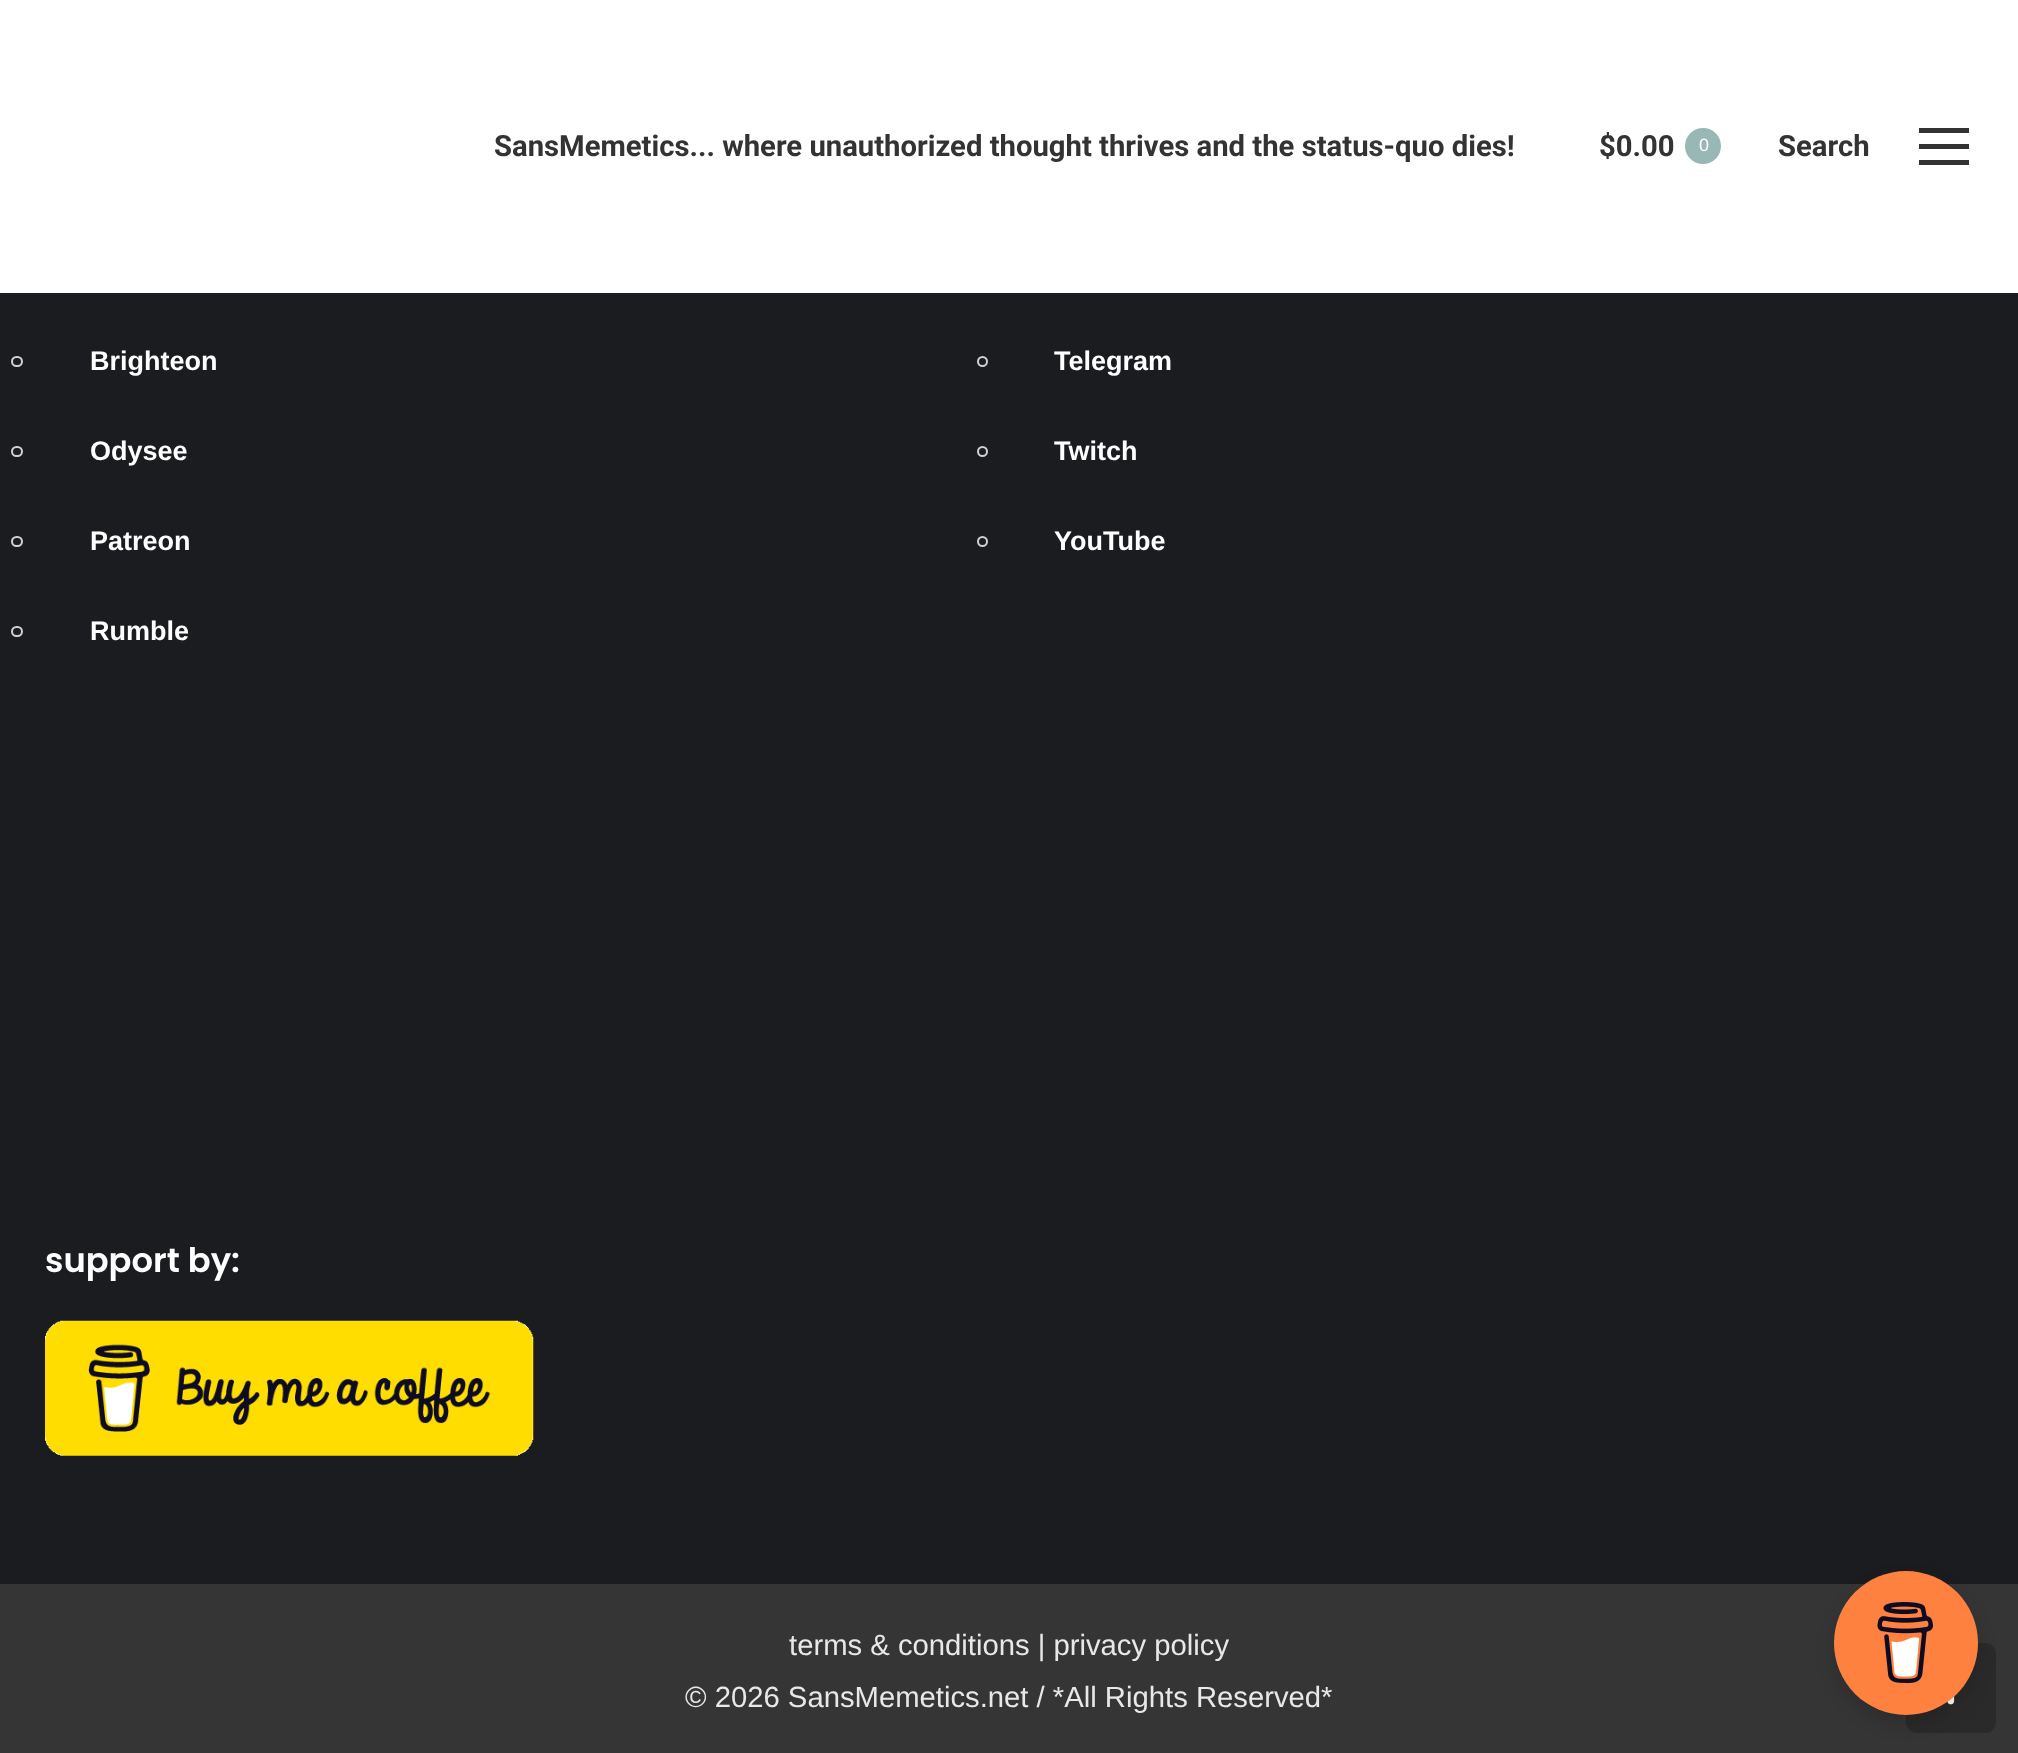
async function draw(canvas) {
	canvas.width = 2018;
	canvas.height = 1753;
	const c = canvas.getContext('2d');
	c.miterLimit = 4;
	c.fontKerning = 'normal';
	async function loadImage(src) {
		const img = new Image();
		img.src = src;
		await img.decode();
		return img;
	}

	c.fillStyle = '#1a1c20';
	c.fillRect(0, 0, 2018, 1753);
	c.fillStyle = '#fff';
	c.fillRect(0, 0, 2018, 293);
	c.font = 'bold 29.25px Roboto';
	c.fillStyle = '#333';
	c.fillText('SansMemetics... where unauthorized thought thrives and the status-quo dies!', 494, 156);
	c.fillText('$0.00', 1599, 156);
	c.fillStyle = '#98b8b6';
	c.beginPath();
	c.arc(1703, 146, 18, 0, 2 * Math.PI);
	c.fill();
	c.font = '18px Liberation Sans';
	c.fillStyle = '#fff';
	c.fillText('0', 1699, 151);
	c.font = 'bold 29.25px Roboto';
	c.fillStyle = '#333';
	c.fillText('Search', 1778, 156);
	for (const [x, y, w, h, color] of [
		[1919, 128, 50, 5, '#333'],
		[1919, 144, 50, 5, '#333'],
		[1919, 160, 50, 5, '#333'],
	]) {
		c.fillStyle = color;
		c.fillRect(x, y, w, h);
	}
	c.beginPath();
	c.roundRect(12, 357, 10, 9, 4.5);
	c.strokeStyle = '#d1d1d1';
	c.lineWidth = 2;
	c.stroke();
	c.font = 'bold 27px Liberation Sans';
	c.fillStyle = '#fff';
	c.fillText('Brighteon', 90, 370);
	c.beginPath();
	c.roundRect(12, 447, 10, 9, 4.5);
	c.stroke();
	c.fillText('Odysee', 90, 460);
	c.beginPath();
	c.roundRect(12, 537, 10, 9, 4.5);
	c.stroke();
	c.fillText('Patreon', 90, 550);
	c.beginPath();
	c.roundRect(12, 627, 10, 9, 4.5);
	c.stroke();
	c.fillText('Rumble', 90, 640);
	c.beginPath();
	c.arc(982.5, 361.5, 4.5, 0, 2 * Math.PI);
	c.stroke();
	c.fillText('Telegram', 1054, 370);
	c.beginPath();
	c.arc(982.5, 451.5, 4.5, 0, 2 * Math.PI);
	c.stroke();
	c.fillText('Twitch', 1054, 460);
	c.beginPath();
	c.arc(982.5, 541.5, 4.5, 0, 2 * Math.PI);
	c.stroke();
	c.fillText('YouTube', 1054, 550);
	c.font = '600 33.75px Poppins';
	c.fillText('support by:', 45, 1272);
	c.drawImage(await loadImage('img1.png'), 45, 1320, 489, 136);
	c.fillStyle = '#353535';
	c.fillRect(0, 1584, 2018, 169);
	c.font = '29.25px Liberation Sans';
	c.fillStyle = '#e8e8e8';
	c.fillText('terms & conditions | privacy policy', 789, 1655);
	c.fillText('© 2026 SansMemetics.net / *All Rights Reserved*', 685, 1707);
	c.fillStyle = '#2a2a2a';
	c.beginPath();
	c.roundRect(1906, 1643, 90, 90, 11);
	c.fill();
	c.drawImage(await loadImage('img2.png'), 1947, 1684, 18, 21);
	c.fillStyle = '#00000026';
	c.filter = 'blur(9px)';
	c.beginPath();
	c.roundRect(1834, 1580, 144, 144, 72);
	c.fill();
	c.filter = 'none';
	c.fillStyle = '#ff813f';
	c.beginPath();
	c.arc(1906, 1643, 72, 0, 2 * Math.PI);
	c.fill();
	c.drawImage(await loadImage('img3.png'), 1877, 1602, 56, 81);
}

draw(document.querySelector('canvas'));
